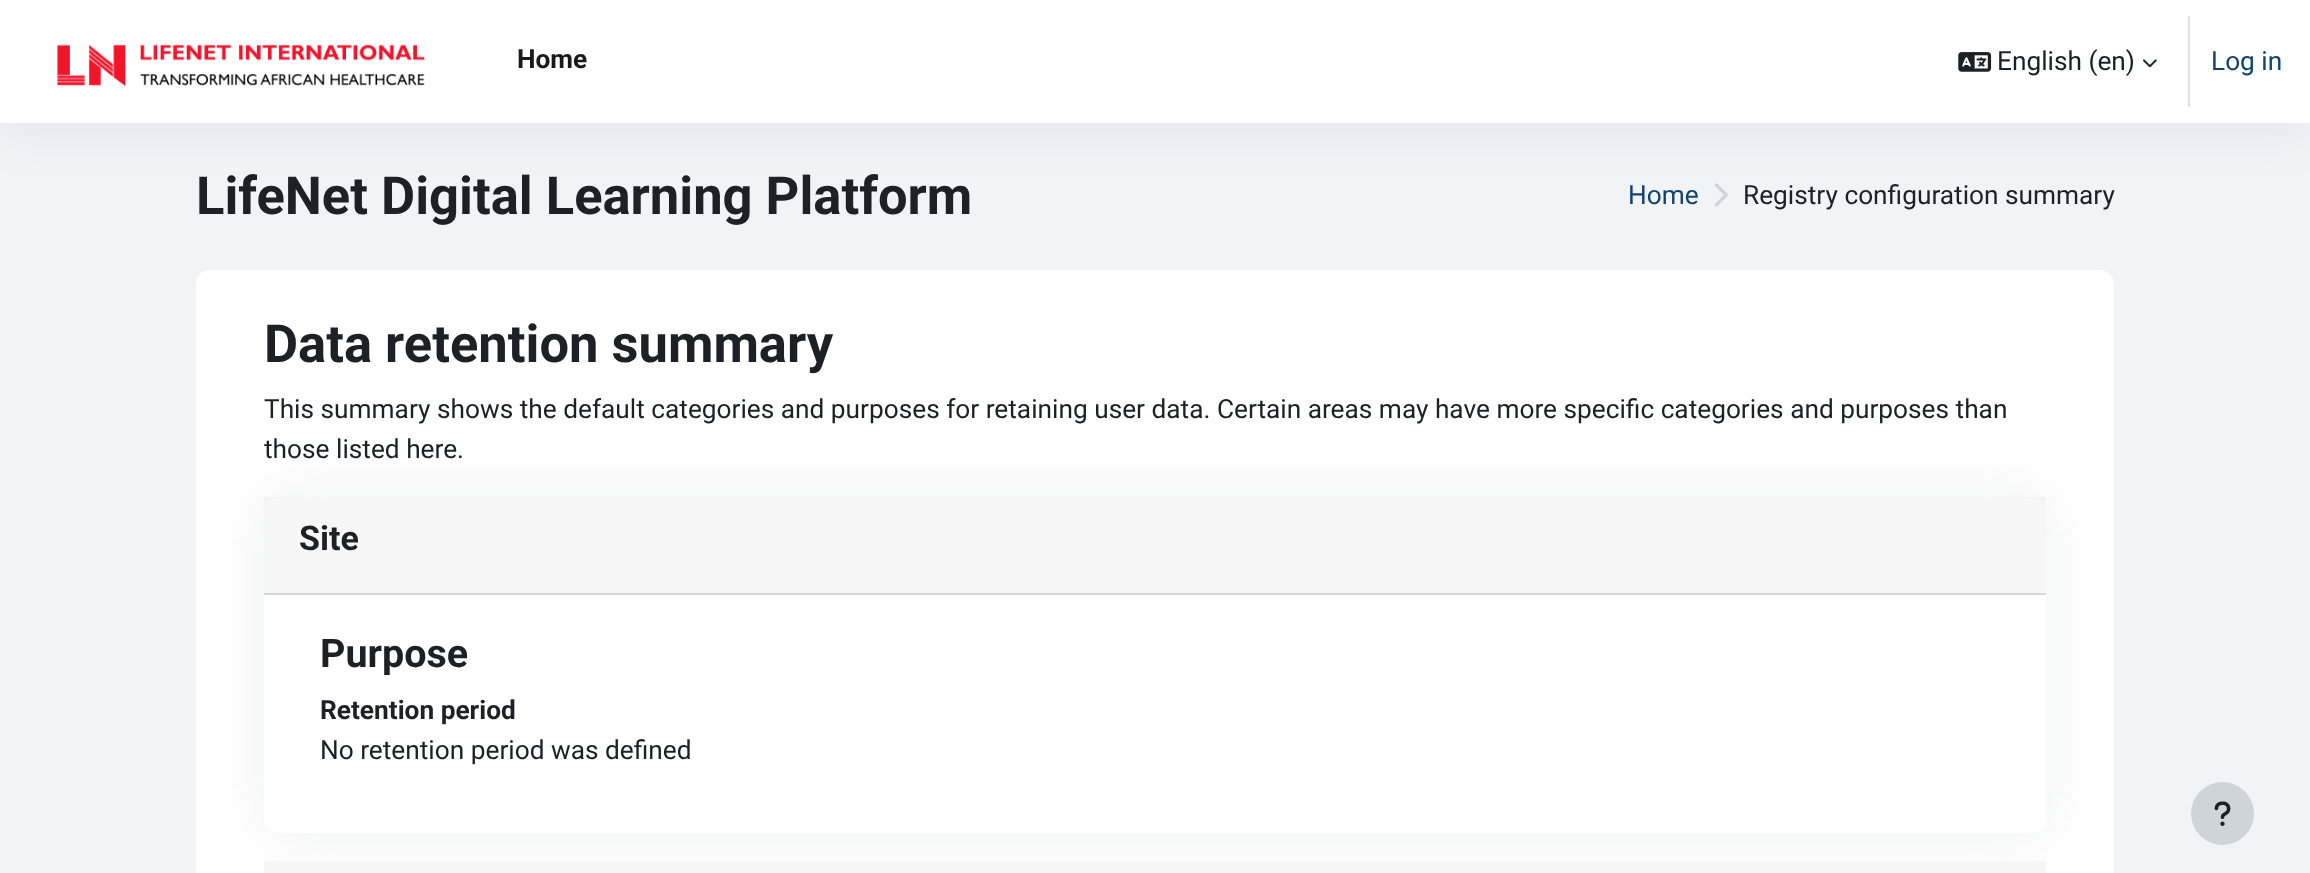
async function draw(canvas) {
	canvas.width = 2310;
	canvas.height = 873;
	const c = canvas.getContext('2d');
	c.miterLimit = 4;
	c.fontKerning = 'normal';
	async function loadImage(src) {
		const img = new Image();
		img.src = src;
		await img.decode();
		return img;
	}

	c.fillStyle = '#f2f3f7';
	c.fillRect(0, 0, 2310, 873);
	c.drawImage(await loadImage('img4.png'), 1714, 183, 14, 24);
	c.fillStyle = '#8c98a421';
	c.filter = 'blur(21px)';
	c.beginPath();
	c.rect(0, 11, 2310, 122);
	c.fill();
	c.filter = 'none';
	c.fillStyle = '#fff';
	c.fillRect(0, 0, 2310, 123);
	c.drawImage(await loadImage('img1.png'), 57, 44, 368, 43);
	c.font = 'bold 26.25px Roboto';
	c.fillStyle = '#1a1a1a';
	c.fillText('Home', 517, 68);
	c.drawImage(await loadImage('img2.png'), 1958, 52, 34, 20);
	c.font = '26.25px Roboto';
	c.fillStyle = '#1d2125';
	c.fillText('English (en)', 1997, 70);
	c.drawImage(await loadImage('img3.png'), 2143, 59, 14, 9);
	c.fillStyle = '#dee2e6';
	c.fillRect(2188, 16, 2, 91);
	c.fillStyle = '#134270';
	c.fillText('Log in', 2211, 70);
	c.font = 'bold 52.5px Roboto';
	c.fillStyle = '#1d2125';
	c.fillText('LifeNet Digital Learning Platform', 196, 214);
	c.font = '26.25px Roboto';
	c.fillStyle = '#134270';
	c.fillText('Home', 1628, 204);
	c.fillStyle = '#1d2125';
	c.fillText('Registry configuration summary', 1743, 204);
	c.fillStyle = '#fff';
	c.beginPath();
	c.roundRect(196, 270, 1918, 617, 14);
	c.fill();
	c.font = 'bold 52.5px Roboto';
	c.fillStyle = '#1d2125';
	c.fillText('Data retention summary', 264, 362);
	c.font = '26.25px Roboto';
	c.fillText('This summary shows the default categories and purposes for retaining user data. Certain areas may have more specific categories and purposes than', 264, 418);
	c.fillText('those listed here.', 264, 458);
	c.fillStyle = '#9aa1ab26';
	c.filter = 'blur(30.5px)';
	c.beginPath();
	c.roundRect(264, 497, 1782, 336, 14);
	c.fill();
	c.filter = 'none';
	c.fillStyle = '#fff';
	c.beginPath();
	c.roundRect(264, 497, 1782, 336, 14);
	c.fill();
	c.fillStyle = '#00000008';
	c.fillRect(264, 497, 1782, 96);
	c.fillStyle = '#d8d8d8';
	c.fillRect(264, 593, 1782, 2);
	c.font = 'bold 34px Roboto';
	c.fillStyle = '#1d2125';
	c.fillText('Site', 299, 550);
	c.font = 'bold 39.5px Roboto';
	c.fillText('Purpose', 320, 667);
	c.font = 'bold 26.25px Roboto';
	c.fillText('Retention period', 320, 719);
	c.font = '26.25px Roboto';
	c.fillText('No retention period was defined', 320, 759);
	c.fillStyle = '#fff';
	c.beginPath();
	c.roundRect(264, 861, 1782, 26, 14);
	c.fill();
	c.fillStyle = '#00000008';
	c.fillRect(264, 861, 1782, 12);
	c.fillStyle = '#ced4da';
	c.beginPath();
	c.arc(2222.5, 813.5, 31.5, 0, 2 * Math.PI);
	c.fill();
	c.drawImage(await loadImage('img5.png'), 2214, 801, 17, 25);
}

draw(document.querySelector('canvas'));
